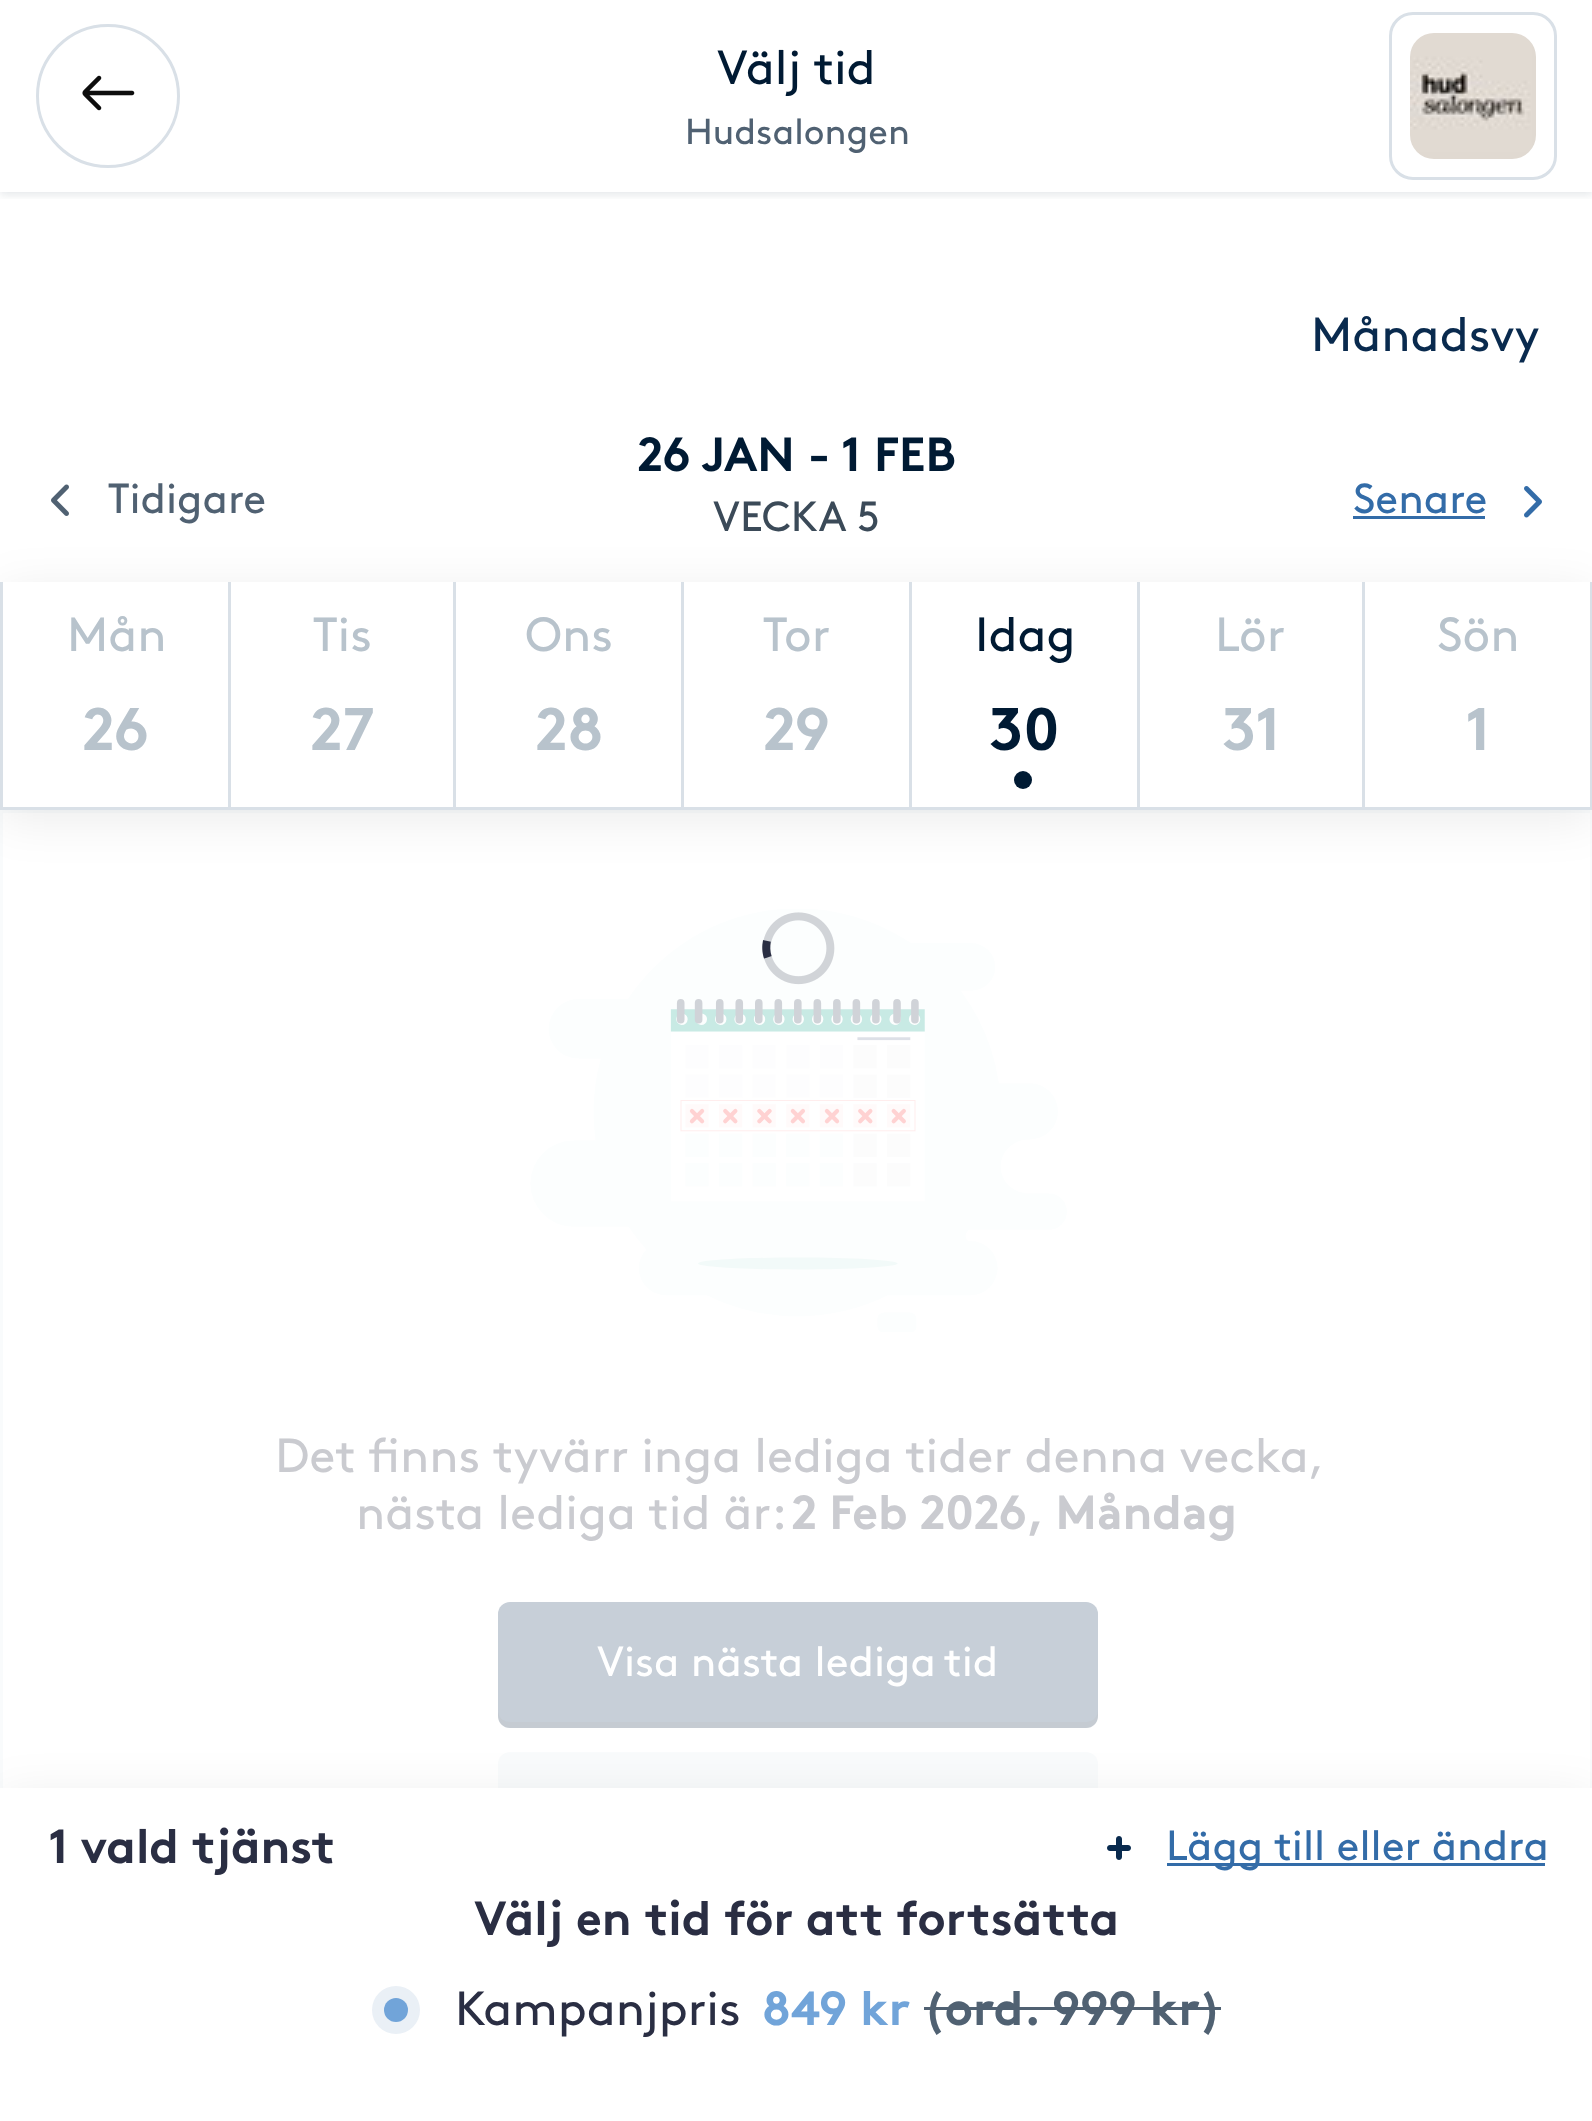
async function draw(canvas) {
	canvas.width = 1592;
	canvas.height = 2121;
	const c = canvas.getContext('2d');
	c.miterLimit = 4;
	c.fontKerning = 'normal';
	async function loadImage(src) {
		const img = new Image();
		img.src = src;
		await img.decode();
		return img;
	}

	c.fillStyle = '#fff';
	c.fillRect(0, 0, 1592, 2121);
	c.save();
	c.beginPath();
	c.rect(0, 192, 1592, 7);
	c.clip();
	c.fillStyle = '#001a331a';
	c.filter = 'blur(4.5px)';
	c.beginPath();
	c.rect(0, 3, 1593, 192);
	c.fill();
	c.filter = 'none';
	c.restore();
	c.beginPath();
	c.arc(108, 96, 70.5, 0, 2 * Math.PI);
	c.strokeStyle = '#d9e0e7';
	c.lineWidth = 3;
	c.stroke();
	c.drawImage(await loadImage('img1.png'), 82, 75, 53, 36);
	c.font = '48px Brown';
	c.fillStyle = '#001a33';
	c.fillText('Välj tid', 717, 84);
	c.font = '36px Brown';
	c.fillStyle = '#506172';
	c.fillText('Hudsalongen', 685, 144);
	c.beginPath();
	c.roundRect(1390.5, 13.5, 165, 165, 22.5);
	c.stroke();
	c.drawImage(await loadImage('img2.png'), 1410, 33, 126, 126);
	c.font = '48px Brown';
	c.fillStyle = '#092a4e';
	c.fillText('Månadsvy', 1311, 351);
	c.font = 'bold 48px Brown';
	c.fillStyle = '#001a33';
	c.fillText('26 JAN - 1 FEB', 637, 471);
	c.font = '42px Brown';
	c.fillStyle = '#3b4a58';
	c.fillText('VECKA 5', 713, 531);
	c.strokeStyle = '#f9fbfc';
	c.strokeRect(1.5, 811.5, 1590, 1188);
	c.save();
	c.beginPath();
	c.moveTo(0, 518);
	c.lineTo(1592, 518);
	c.lineTo(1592, 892);
	c.lineTo(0, 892);
	c.closePath();
	c.moveTo(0, 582);
	c.lineTo(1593, 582);
	c.lineTo(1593, 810);
	c.lineTo(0, 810);
	c.closePath();
	c.clip('evenodd');
	c.fillStyle = '#00000014';
	c.filter = 'blur(24px)';
	c.beginPath();
	c.rect(0, 591, 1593, 228);
	c.fill();
	c.filter = 'none';
	c.restore();
	c.drawImage(await loadImage('img3.png'), 51, 484, 18, 32);
	c.fillStyle = '#506172';
	c.fillText('Tidigare', 108, 513);
	c.fillStyle = '#336ca8';
	c.fillText('Senare', 1353, 513);
	c.fillRect(1353, 516, 132, 3);
	c.drawImage(await loadImage('img4.png'), 1524, 486, 18, 32);
	c.fillStyle = '#d9e0e7';
	c.fillRect(0, 807, 1362, 3);
	c.fillRect(0, 582, 3, 228);
	c.font = '48px Brown';
	c.fillStyle = '#b8c3cc';
	c.fillText('Mån', 67, 651);
	c.font = 'bold 60px Brown';
	c.fillText('26', 82, 750);
	c.fillStyle = '#d9e0e7';
	c.fillRect(228, 582, 3, 228);
	c.font = '48px Brown';
	c.fillStyle = '#b8c3cc';
	c.fillText('Tis', 313, 651);
	c.font = 'bold 60px Brown';
	c.fillText('27', 310, 750);
	c.fillStyle = '#d9e0e7';
	c.fillRect(453, 582, 3, 228);
	c.font = '48px Brown';
	c.fillStyle = '#b8c3cc';
	c.fillText('Ons', 525, 651);
	c.font = 'bold 60px Brown';
	c.fillText('28', 535, 750);
	c.fillStyle = '#d9e0e7';
	c.fillRect(681, 582, 3, 228);
	c.font = '48px Brown';
	c.fillStyle = '#b8c3cc';
	c.fillText('Tor', 763, 651);
	c.font = 'bold 60px Brown';
	c.fillText('29', 763, 750);
	c.fillStyle = '#d9e0e7';
	c.fillRect(909, 582, 3, 228);
	c.font = '48px Brown';
	c.fillStyle = '#001a33';
	c.fillText('Idag', 975, 651);
	c.font = 'bold 60px Brown';
	c.fillText('30', 989, 750);
	c.beginPath();
	c.arc(1023, 780, 9, 0, 2 * Math.PI);
	c.fill();
	c.fillStyle = '#d9e0e7';
	c.fillRect(1137, 582, 3, 228);
	c.font = '48px Brown';
	c.fillStyle = '#b8c3cc';
	c.fillText('Lör', 1215, 651);
	c.font = 'bold 60px Brown';
	c.fillText('31', 1222, 750);
	for (const [x, y, w, h, color] of [
		[1590, 582, 2, 228, '#d9e0e7'],
		[1362, 807, 230, 3, '#d9e0e7'],
		[1362, 582, 3, 228, '#d9e0e7'],
	]) {
		c.fillStyle = color;
		c.fillRect(x, y, w, h);
	}
	c.font = '48px Brown';
	c.fillStyle = '#b8c3cc';
	c.fillText('Sön', 1437, 651);
	c.font = 'bold 60px Brown';
	c.fillText('1', 1465, 750);
	c.drawImage(await loadImage('img6.png'), 530, 909, 537, 423);
	c.drawImage(await loadImage('img5.png'), 762, 912, 73, 73);
	c.font = '48px Brown';
	c.fillStyle = '#cacbd0';
	c.fillText('Det finns tyvärr inga lediga tider denna vecka,', 275, 1472);
	c.fillText('nästa lediga tid är:', 356, 1529);
	c.font = 'bold 48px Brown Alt';
	c.fillText('2 Feb 2026, Måndag', 791, 1529);
	c.fillStyle = '#c7cfd8';
	c.beginPath();
	c.roundRect(498, 1602, 600, 126, 12);
	c.fill();
	c.fillStyle = '#bfbfbf33';
	c.beginPath();
	c.moveTo(498, 1710);
	c.lineTo(498, 1716);
	c.bezierCurveTo(498, 1723, 503, 1728, 510, 1728);
	c.lineTo(1086, 1728);
	c.bezierCurveTo(1093, 1728, 1098, 1723, 1098, 1716);
	c.lineTo(1098, 1710);
	c.bezierCurveTo(1098, 1717, 1093, 1722, 1086, 1722);
	c.lineTo(510, 1722);
	c.bezierCurveTo(503, 1722, 498, 1717, 498, 1710);
	c.closePath();
	c.fill();
	c.font = '42px Brown';
	c.fillStyle = '#fff';
	c.fillText('Visa nästa lediga', 597, 1676);
	c.fillText('tid', 944, 1676);
	c.fillStyle = '#f9fbfc';
	c.beginPath();
	c.roundRect(498, 1752, 600, 126, 12);
	c.fill();
	c.fillStyle = '#00000014';
	c.filter = 'blur(24px)';
	c.beginPath();
	c.rect(0, 1797, 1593, 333);
	c.fill();
	c.filter = 'none';
	c.fillStyle = '#fff';
	c.fillRect(0, 1788, 1592, 333);
	c.font = 'bold 48px Brown';
	c.fillStyle = '#2a2e43';
	c.fillText('1 vald tjänst', 48, 1863);
	c.drawImage(await loadImage('img7.png'), 1107, 1836, 24, 24);
	c.fillStyle = '#336ca8';
	c.fillRect(1167, 1863, 378, 3);
	c.font = '42px Brown';
	c.fillText('Lägg till eller ändra', 1166, 1860);
	c.font = 'bold 48px Brown';
	c.fillStyle = '#2a2e43';
	c.fillText('Välj en tid för att fortsätta', 474, 1935);
	c.fillStyle = '#eaf0f6';
	c.beginPath();
	c.arc(396, 2010, 24, 0, 2 * Math.PI);
	c.fill();
	c.fillStyle = '#71a4d9';
	c.beginPath();
	c.arc(396, 2010, 12, 0, 2 * Math.PI);
	c.fill();
	c.font = '48px Brown';
	c.fillStyle = '#2a2e43';
	c.fillText('Kampanjpris', 455, 2025);
	c.font = 'bold 48px Brown Alt';
	c.fillStyle = '#71a4d9';
	c.fillText('849 kr', 762, 2025);
	c.fillStyle = '#506172';
	c.fillText('(ord. 999 kr)', 923, 2025);
	c.fillRect(924, 2007, 297, 3);
}

draw(document.querySelector('canvas'));
